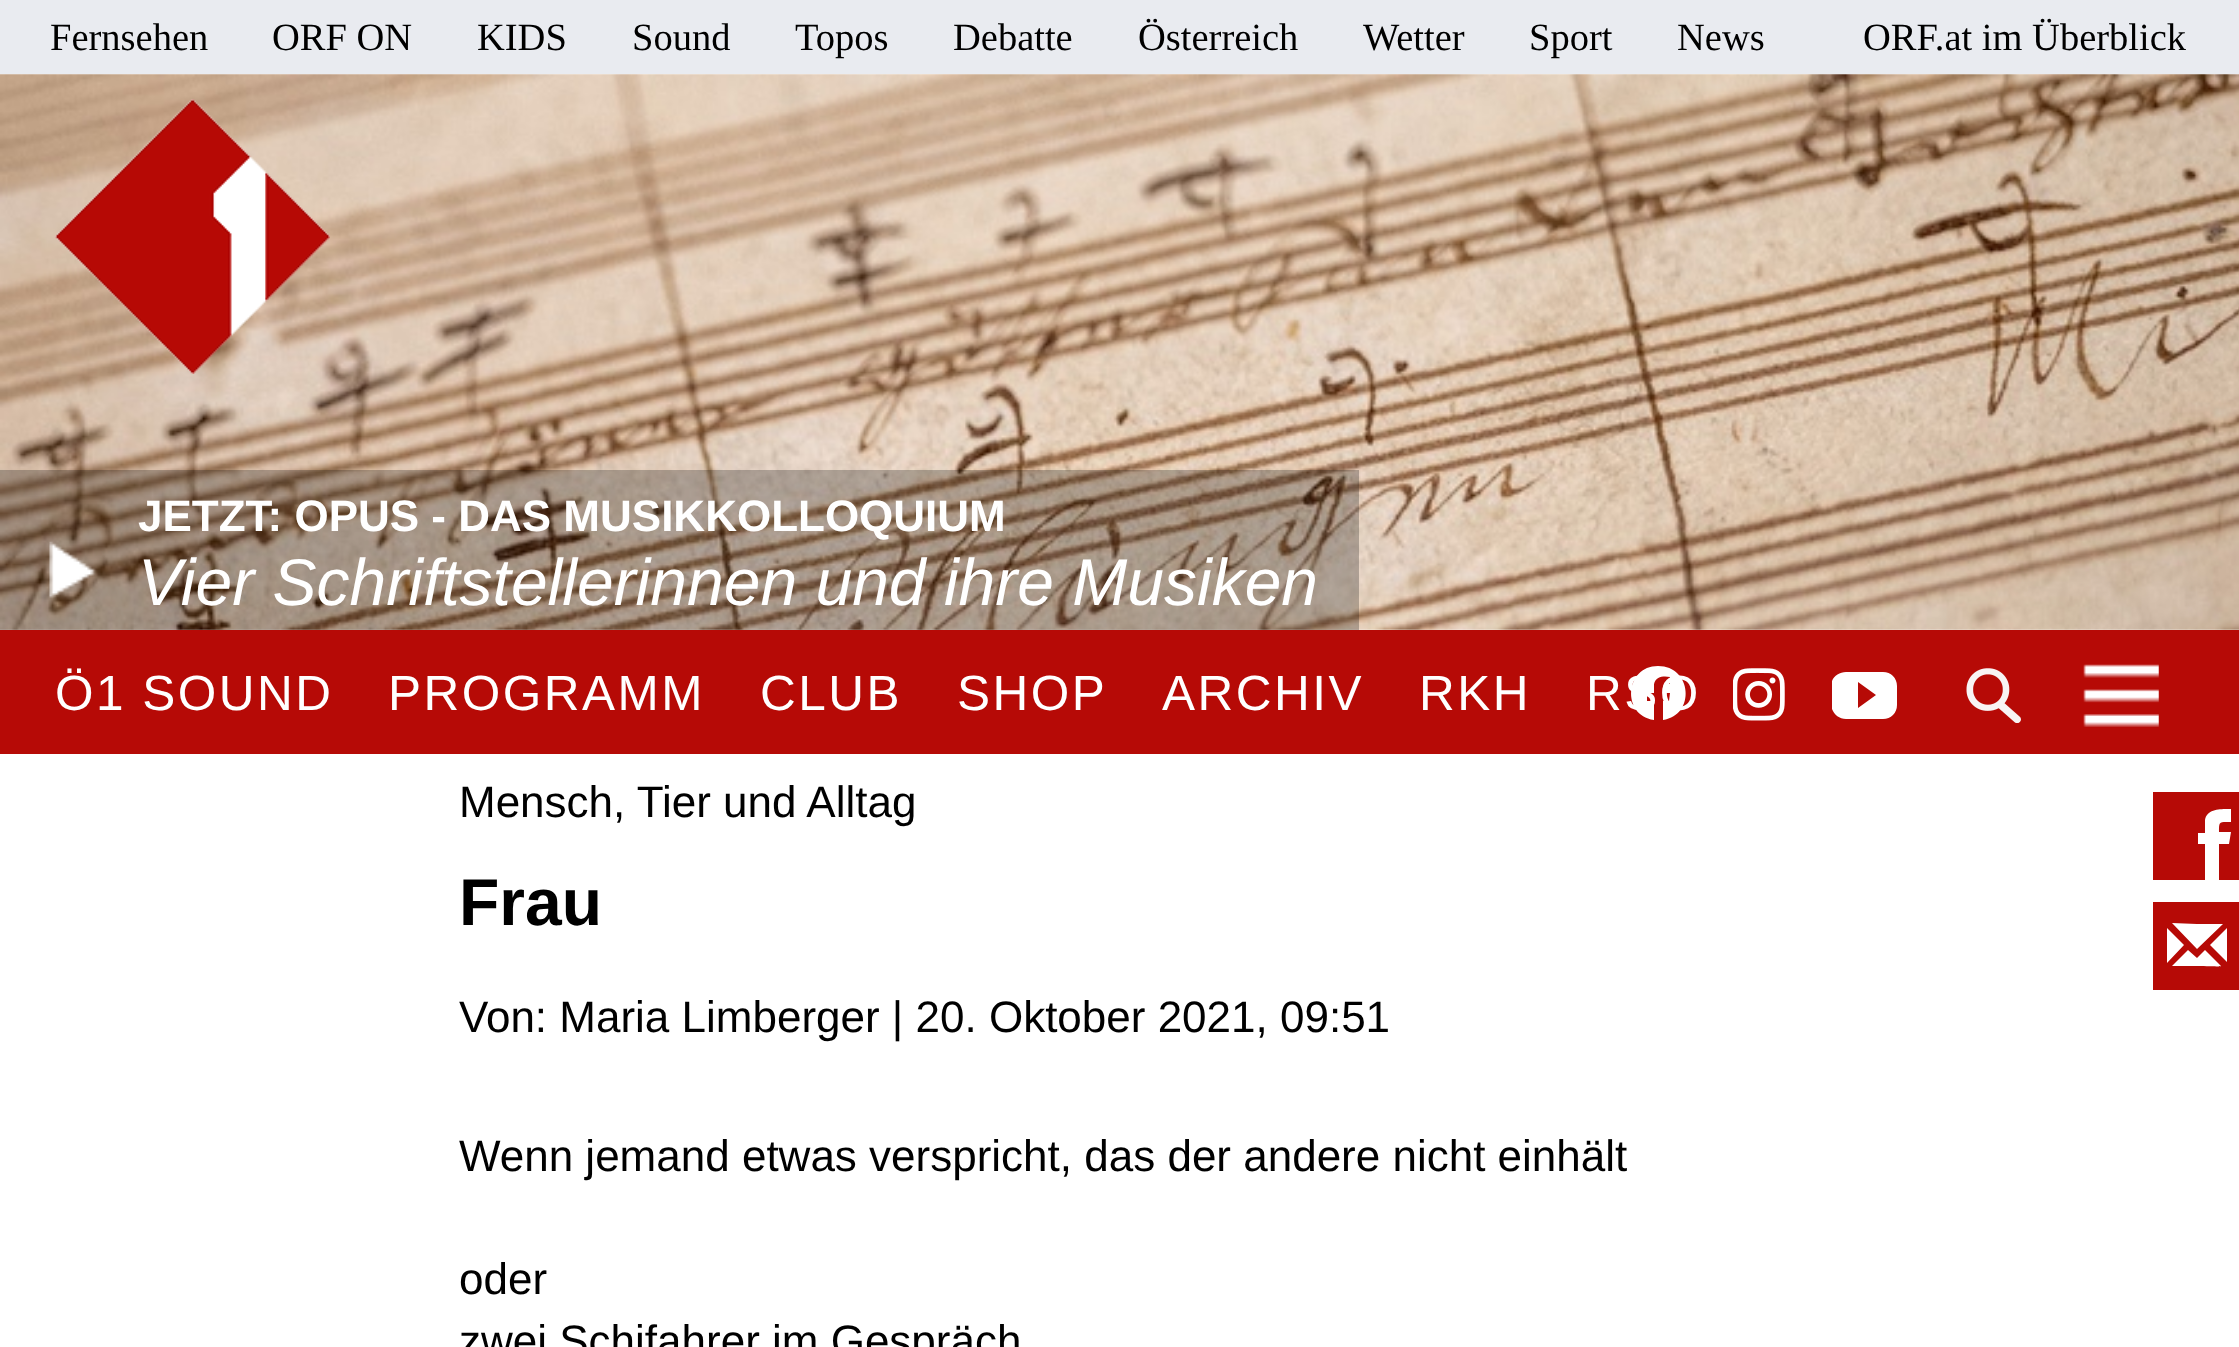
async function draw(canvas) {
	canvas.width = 2239;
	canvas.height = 1347;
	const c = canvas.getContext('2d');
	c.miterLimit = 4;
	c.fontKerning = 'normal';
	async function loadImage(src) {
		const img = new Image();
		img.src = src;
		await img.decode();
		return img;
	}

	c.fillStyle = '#fff';
	c.fillRect(0, 0, 2239, 1347);
	c.fillStyle = '#e9ebf0';
	c.fillRect(0, 0, 2239, 74);
	c.font = '38.5px Liberation Serif';
	c.fillStyle = '#000';
	for (const [text, x, y] of [
		['Fernsehen', 50, 50],
		['ORF ON', 272, 50],
		['KIDS', 477, 50],
		['Sound', 632, 50],
		['Topos', 795, 50],
		['Debatte', 953, 50],
		['Österreich', 1138, 50],
		['Wetter', 1363, 50],
		['Sport', 1529, 50],
		['News', 1677, 50],
		['ORF.at im Überblick', 1863, 50],
	]) {
		c.fillText(text, x, y);
	}
	c.drawImage(await loadImage('img2.png'), 0, 74, 2239, 556);
	c.drawImage(await loadImage('img1.png'), 55, 99, 275, 275);
	c.fillStyle = '#00000040';
	c.fillRect(0, 470, 1359, 160);
	c.font = 'bold 44px Liberation Sans';
	c.fillStyle = '#fff';
	c.fillText('JETZT: OPUS - DAS MUSIKKOLLOQUIUM', 138, 531);
	c.drawImage(await loadImage('img3.png'), 49, 541, 48, 57);
	c.font = 'italic 66px Liberation Sans';
	c.fillText('Vier Schriftstellerinnen und ihre Musiken', 138, 605);
	c.fillStyle = '#b60a06';
	c.fillRect(0, 630, 2239, 124);
	c.letterSpacing = '2.5px';
	c.font = '49.5px Liberation Sans';
	c.fillStyle = '#fff';
	for (const [text, x, y] of [
		['Ö1 SOUND', 55, 710],
		['PROGRAMM', 388, 710],
		['CLUB', 760, 710],
		['SHOP', 957, 710],
		['ARCHIV', 1162, 710],
		['RKH', 1419, 710],
		['RSO', 1586, 710],
	]) {
		c.fillText(text, x, y);
	}
	c.beginPath();
	c.moveTo(1658, 666);
	c.bezierCurveTo(1625, 666, 1621, 715, 1654, 720);
	c.lineTo(1654, 701);
	c.lineTo(1647, 701);
	c.lineTo(1647, 693);
	c.lineTo(1654, 693);
	c.lineTo(1654, 684);
	c.bezierCurveTo(1656, 676, 1664, 676, 1670, 677);
	c.lineTo(1670, 684);
	c.bezierCurveTo(1662, 684, 1663, 685, 1663, 693);
	c.lineTo(1670, 693);
	c.lineTo(1669, 701);
	c.lineTo(1663, 701);
	c.lineTo(1663, 720);
	c.bezierCurveTo(1696, 715, 1692, 666, 1658, 666);
	c.closePath();
	c.fill();
	c.drawImage(await loadImage('img4.png'), 1733, 668, 52, 53);
	c.save();
	c.beginPath();
	c.rect(1832, 671, 66, 50);
	c.clip();
	c.beginPath();
	c.moveTo(1883, 672);
	c.lineTo(1846, 672);
	c.bezierCurveTo(1838, 672, 1831, 678, 1831, 686);
	c.lineTo(1831, 705);
	c.bezierCurveTo(1832, 713, 1838, 719, 1846, 719);
	c.lineTo(1883, 719);
	c.bezierCurveTo(1891, 719, 1897, 713, 1897, 705);
	c.lineTo(1897, 686);
	c.bezierCurveTo(1897, 678, 1891, 672, 1883, 672);
	c.closePath();
	c.moveTo(1858, 708);
	c.lineTo(1858, 682);
	c.lineTo(1876, 695);
	c.closePath();
	c.fill();
	c.restore();
	c.drawImage(await loadImage('img5.png'), 1966, 668, 55, 55);
	c.drawImage(await loadImage('img6.png'), 2083, 664, 76, 63);
	c.letterSpacing = '0px';
	c.font = '44px Liberation Sans';
	c.fillStyle = '#000';
	c.fillText('Mensch, Tier und Alltag', 459, 817);
	c.fillStyle = '#b60a06';
	c.beginPath();
	c.moveTo(2153, 792);
	c.lineTo(2153, 880);
	c.lineTo(2205, 880);
	c.lineTo(2205, 844);
	c.lineTo(2198, 844);
	c.lineTo(2198, 833);
	c.lineTo(2205, 833);
	c.lineTo(2205, 820);
	c.bezierCurveTo(2207, 808, 2222, 809, 2231, 809);
	c.lineTo(2231, 822);
	c.bezierCurveTo(2219, 822, 2219, 821, 2219, 832);
	c.lineTo(2231, 832);
	c.lineTo(2229, 844);
	c.lineTo(2219, 844);
	c.lineTo(2219, 880);
	c.lineTo(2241, 880);
	c.lineTo(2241, 792);
	c.closePath();
	c.fill();
	c.beginPath();
	c.moveTo(2153, 902);
	c.lineTo(2153, 990);
	c.lineTo(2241, 990);
	c.lineTo(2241, 902);
	c.closePath();
	c.moveTo(2197, 924);
	c.lineTo(2223, 924);
	c.lineTo(2197, 949);
	c.lineTo(2172, 923);
	c.closePath();
	c.moveTo(2167, 963);
	c.lineTo(2167, 928);
	c.lineTo(2184, 945);
	c.closePath();
	c.moveTo(2197, 966);
	c.lineTo(2172, 966);
	c.lineTo(2188, 950);
	c.lineTo(2197, 958);
	c.lineTo(2205, 950);
	c.lineTo(2221, 966);
	c.bezierCurveTo(2222, 967, 2211, 966, 2197, 966);
	c.closePath();
	c.moveTo(2227, 945);
	c.lineTo(2227, 962);
	c.lineTo(2210, 945);
	c.lineTo(2227, 928);
	c.closePath();
	c.fill();
	c.font = 'bold 66px Liberation Sans';
	c.fillStyle = '#000';
	c.fillText('Frau', 459, 925);
	c.font = '44px Liberation Sans';
	for (const [text, x, y] of [
		['Von: Maria Limberger | 20. Oktober 2021, 09:51', 459, 1032],
		['Wenn jemand etwas verspricht, das der andere nicht einhält', 459, 1171],
		['oder', 459, 1294],
		['zwei Schifahrer im Gespräch', 459, 1356],
	]) {
		c.fillText(text, x, y);
	}
}

draw(document.querySelector('canvas'));
